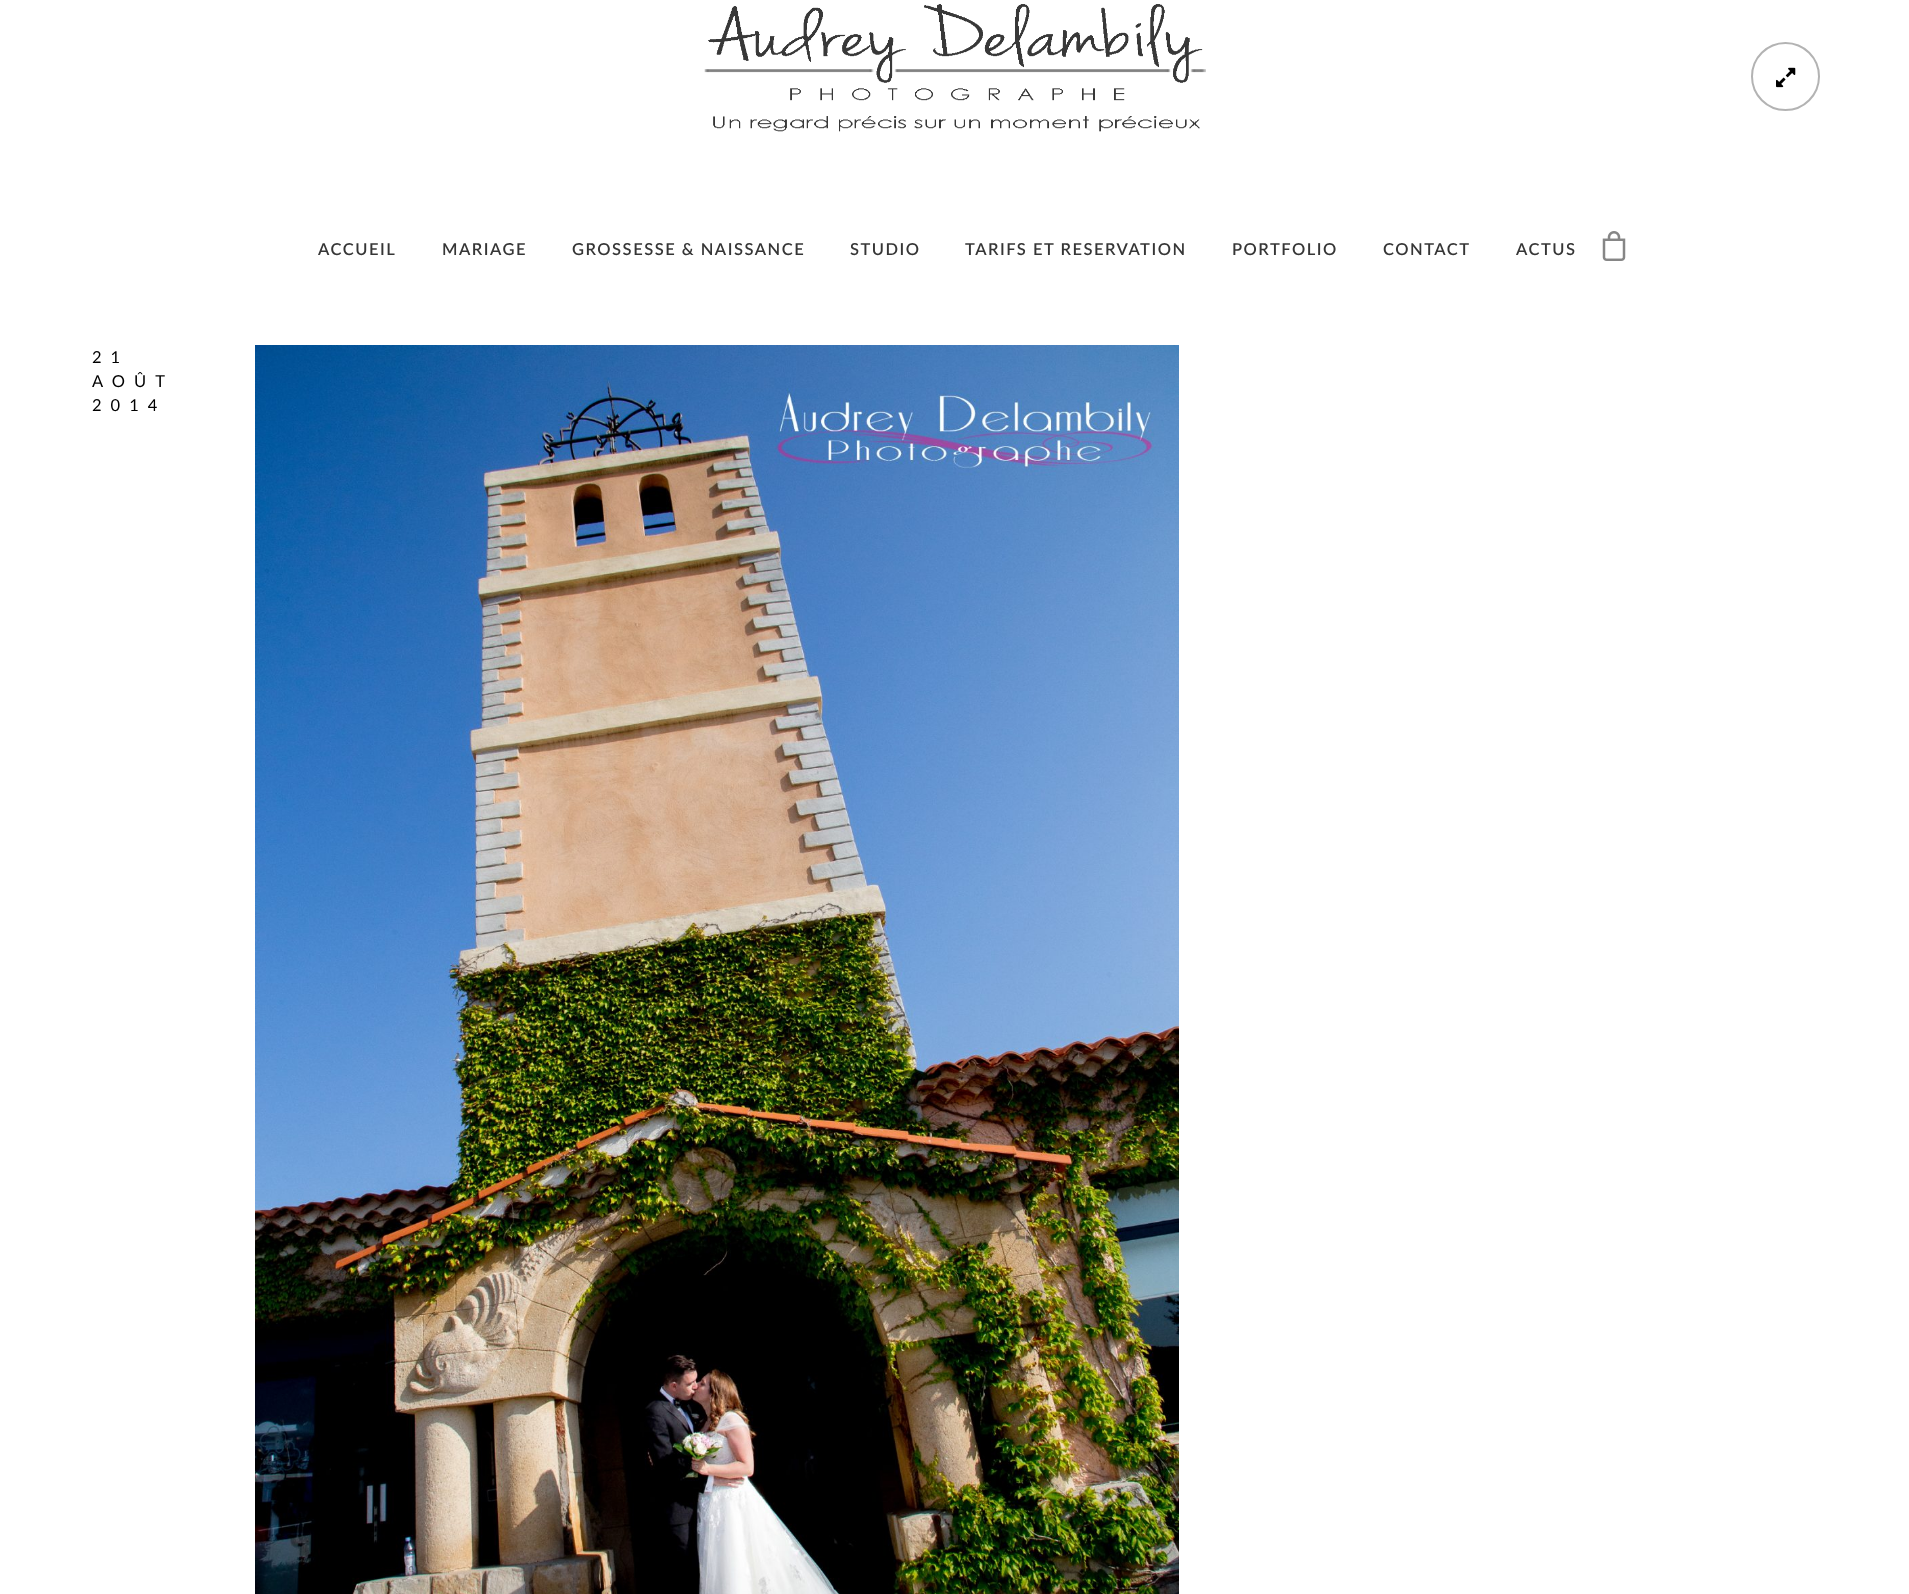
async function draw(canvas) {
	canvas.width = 1909;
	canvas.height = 1594;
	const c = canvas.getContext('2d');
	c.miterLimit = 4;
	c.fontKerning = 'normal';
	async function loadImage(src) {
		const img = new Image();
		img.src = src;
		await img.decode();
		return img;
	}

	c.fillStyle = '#fff';
	c.fillRect(0, 0, 1909, 1594);
	c.beginPath();
	c.arc(1785.5, 76.5, 33.5, 0, 2 * Math.PI);
	c.strokeStyle = '#b3b3b3';
	c.lineWidth = 2;
	c.stroke();
	c.drawImage(await loadImage('img1.png'), 1776, 67, 20, 21);
	c.drawImage(await loadImage('img2.png'), 704, 4, 502, 128);
	c.letterSpacing = '1.5px';
	c.font = '600 16.5px Lato';
	c.fillStyle = '#363636';
	for (const [text, x, y] of [
		['ACCUEIL', 318, 255],
		['MARIAGE', 442, 255],
		['GROSSESSE & NAISSANCE', 572, 255],
		['STUDIO', 850, 255],
		['TARIFS ET RESERVATION', 965, 255],
		['PORTFOLIO', 1232, 255],
		['CONTACT', 1383, 255],
		['ACTUS', 1516, 255],
	]) {
		c.fillText(text, x, y);
	}
	c.drawImage(await loadImage('img3.png'), 1602, 231, 24, 30);
	c.letterSpacing = '9px';
	c.font = '16.5px Lato';
	c.fillStyle = '#000';
	for (const [text, x, y] of [
		['21', 92, 363],
		['AOÛT', 92, 387],
		['2014', 92, 411],
	]) {
		c.fillText(text, x, y);
	}
	c.drawImage(await loadImage('img4.png'), 255, 345, 924, 1249);
}

draw(document.querySelector('canvas'));
